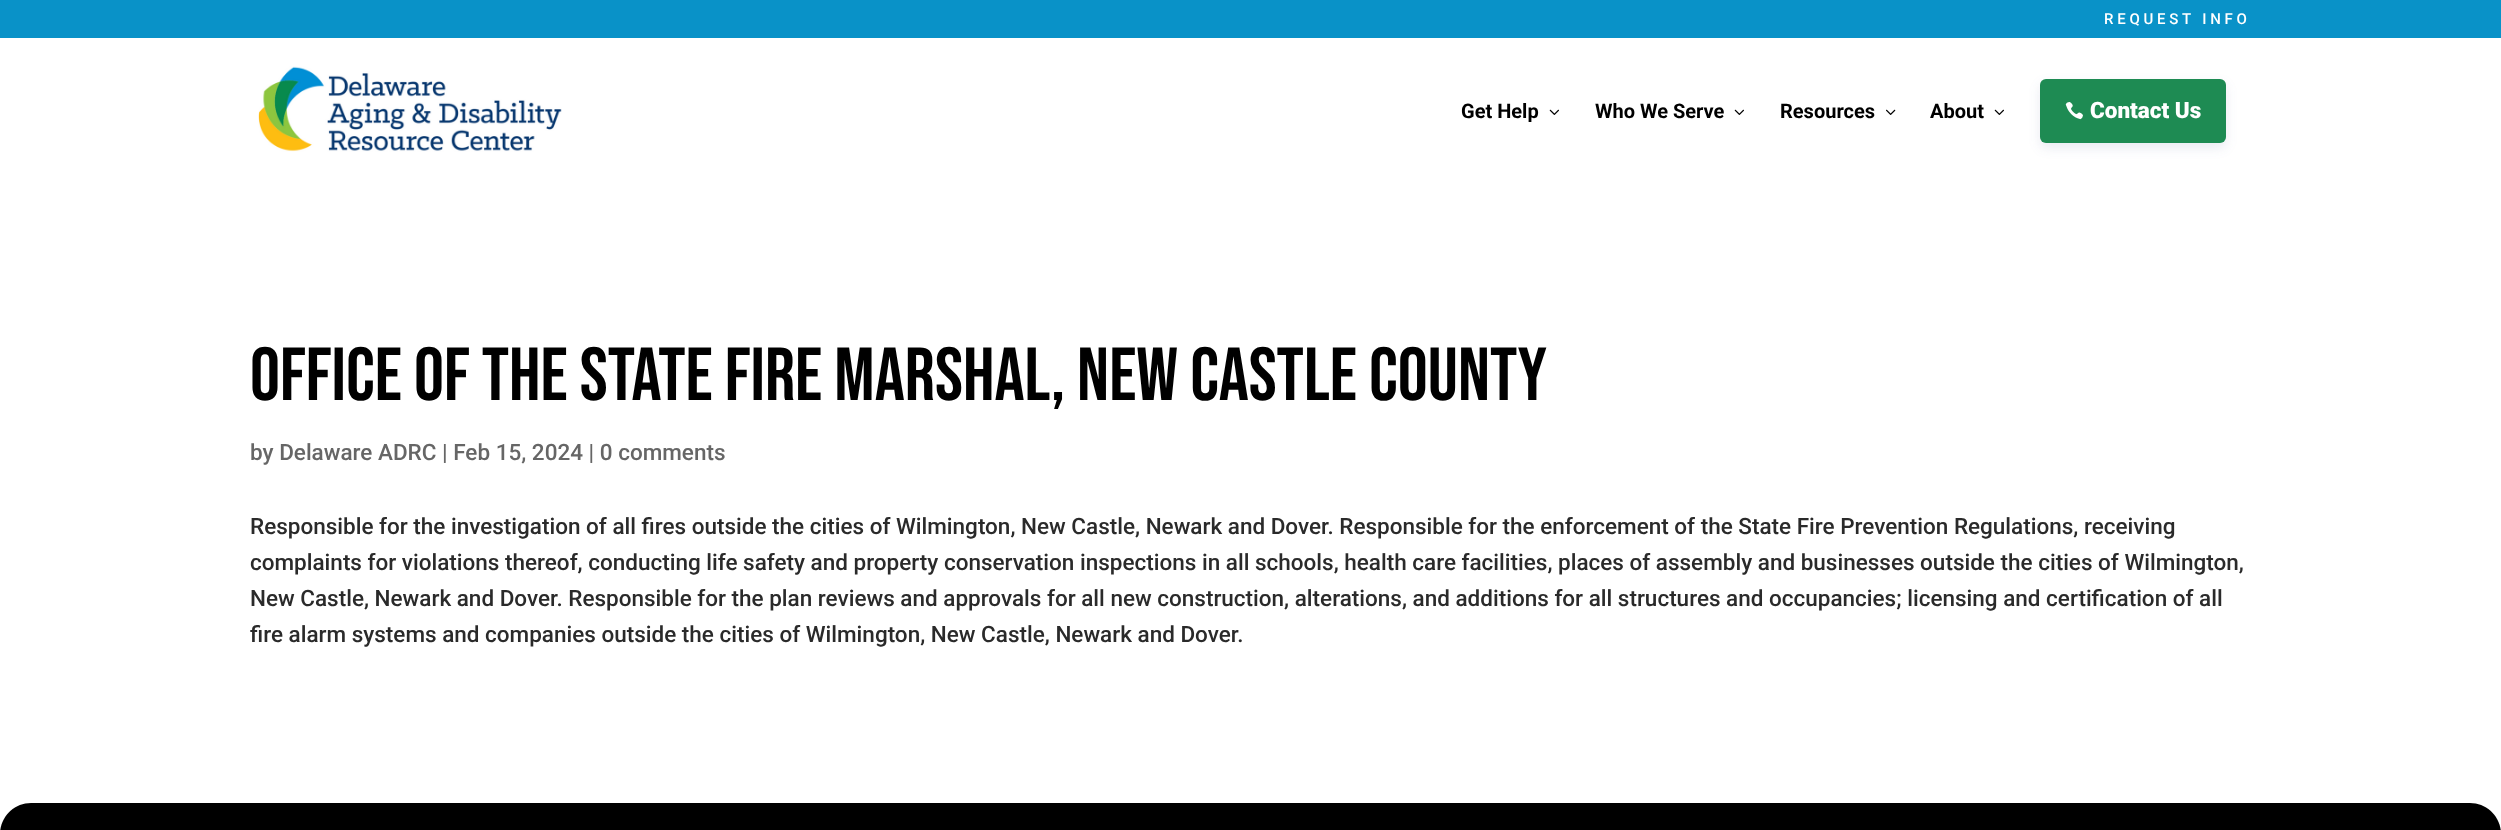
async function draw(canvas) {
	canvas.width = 2501;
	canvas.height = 830;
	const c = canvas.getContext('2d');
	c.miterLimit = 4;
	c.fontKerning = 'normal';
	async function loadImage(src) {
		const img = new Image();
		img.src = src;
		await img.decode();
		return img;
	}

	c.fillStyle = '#fff';
	c.fillRect(0, 0, 2501, 830);
	c.fillStyle = '#0992c8';
	c.fillRect(0, 0, 2501, 38);
	c.letterSpacing = '3.75px';
	c.font = '500 15px Roboto';
	c.fillStyle = '#fff';
	c.fillText('REQUEST INFO', 2104, 24);
	c.drawImage(await loadImage('img1.png'), 258, 66, 304, 86);
	c.letterSpacing = '0px';
	c.font = 'bold 20px Roboto';
	c.fillStyle = '#000';
	c.fillText('Get Help', 1461, 118);
	c.drawImage(await loadImage('img2.png'), 1549, 109, 10, 6);
	c.fillText('Who We Serve', 1595, 118);
	c.drawImage(await loadImage('img2.png'), 1734, 109, 10, 6);
	c.fillText('Resources', 1780, 118);
	c.drawImage(await loadImage('img3.png'), 1886, 109, 10, 6);
	c.fillText('About', 1930, 118);
	c.drawImage(await loadImage('img2.png'), 1994, 109, 10, 6);
	c.fillStyle = '#263d7b1a';
	c.filter = 'blur(6px)';
	c.beginPath();
	c.roundRect(2040, 84, 186, 64, 6);
	c.fill();
	c.filter = 'none';
	c.fillStyle = '#1e8b53';
	c.beginPath();
	c.roundRect(2040, 79, 186, 64, 6);
	c.fill();
	c.drawImage(await loadImage('img4.png'), 2065, 102, 18, 18);
	c.font = '900 22.5px Roboto';
	c.fillStyle = '#fff';
	c.fillText('Contact Us', 2090, 118);
	c.font = '75px Bebas Neue';
	c.fillStyle = '#000';
	c.fillText('Office of the State Fire Marshal, New Castle County', 250, 400);
	c.font = '500 22.5px Roboto';
	c.fillStyle = '#666';
	c.fillText('by Delaware ADRC | Feb 15, 2024 | 0 comments', 250, 460);
	c.fillStyle = '#2a2a2a';
	for (const [text, x, y] of [
		['Responsible for the investigation of all fires outside the cities of Wilmington, New Castle, Newark and Dover. Responsible for the enforcement of the State Fire Prevention Regulations, receiving', 250, 534],
		['complaints for violations thereof, conducting life safety and property conservation inspections in all schools, health care facilities, places of assembly and businesses outside the cities of Wilmington,', 250, 570],
		['New Castle, Newark and Dover. Responsible for the plan reviews and approvals for all new construction, alterations, and additions for all structures and occupancies; licensing and certification of all', 250, 606],
		['fire alarm systems and companies outside the cities of Wilmington, New Castle, Newark and Dover.', 250, 642],
	]) {
		c.fillText(text, x, y);
	}
	c.fillStyle = '#000';
	c.beginPath();
	c.moveTo(31, 803);
	c.lineTo(2470, 803);
	c.bezierCurveTo(2487, 803, 2501, 817, 2501, 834);
	c.lineTo(2501, 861);
	c.lineTo(0, 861);
	c.lineTo(0, 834);
	c.bezierCurveTo(0, 817, 14, 803, 31, 803);
	c.closePath();
	c.fill();
}

draw(document.querySelector('canvas'));
